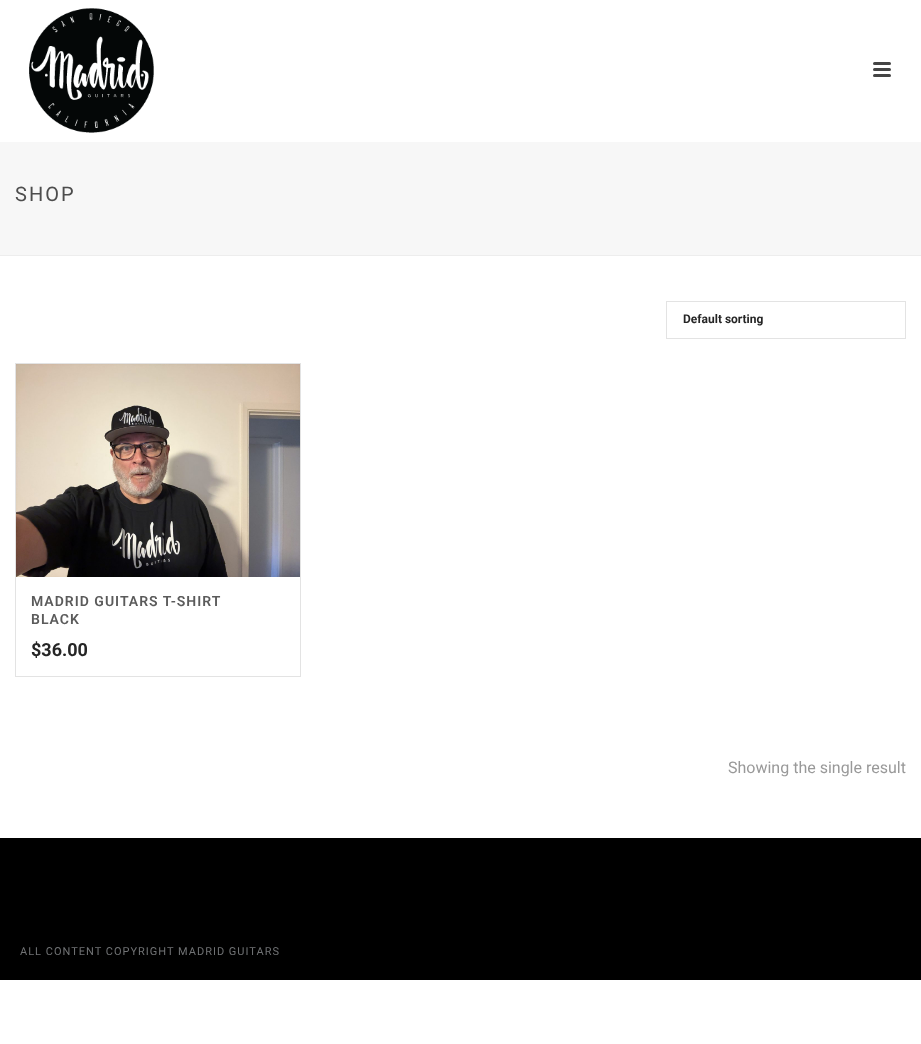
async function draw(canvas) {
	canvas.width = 921;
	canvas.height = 1044;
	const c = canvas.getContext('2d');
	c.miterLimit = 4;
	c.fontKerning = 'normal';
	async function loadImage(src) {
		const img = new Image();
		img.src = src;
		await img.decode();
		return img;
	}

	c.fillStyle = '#fff';
	c.fillRect(0, 0, 921, 1044);
	c.fillStyle = '#f7f7f7';
	c.fillRect(0, 142, 921, 113);
	c.fillStyle = '#ededed';
	c.fillRect(0, 255, 921, 1);
	c.drawImage(await loadImage('img1.png'), 29, 8, 125, 125);
	c.fillStyle = '#444';
	c.beginPath();
	c.roundRect(873, 62, 18, 3, 1.5);
	c.fill();
	c.beginPath();
	c.roundRect(873, 68, 18, 3, 1.5);
	c.fill();
	c.beginPath();
	c.roundRect(873, 74, 18, 3, 1.5);
	c.fill();
	c.letterSpacing = '2px';
	c.font = '20px Roboto';
	c.fillStyle = '#4d4d4d';
	c.fillText('SHOP', 15, 201);
	c.strokeStyle = '#e3e3e3';
	c.strokeRect(666.5, 301.5, 239, 37);
	c.letterSpacing = '0px';
	c.font = 'bold 12px Roboto';
	c.fillStyle = '#252525';
	c.fillText('Default sorting', 683, 323);
	c.strokeRect(15.5, 363.5, 285, 313);
	c.drawImage(await loadImage('img2.png'), 16, 364, 284, 213);
	c.letterSpacing = '1px';
	c.font = '600 14px Roboto';
	c.fillStyle = '#5b5b5b';
	c.fillText('MADRID GUITARS T-SHIRT', 31, 606);
	c.fillText('BLACK', 31, 624);
	c.letterSpacing = '0px';
	c.font = 'bold 18px Roboto';
	c.fillStyle = '#252525';
	c.fillText('$36.00', 31, 656);
	c.font = '16px Roboto';
	c.fillStyle = '#999';
	c.fillText('Showing the single result', 728, 773);
	c.fillStyle = '#000';
	c.fillRect(0, 838, 921, 142);
	c.letterSpacing = '1px';
	c.font = '11px Roboto';
	c.fillStyle = '#707274';
	c.fillText('ALL CONTENT COPYRIGHT MADRID GUITARS', 20, 955);
}

draw(document.querySelector('canvas'));
